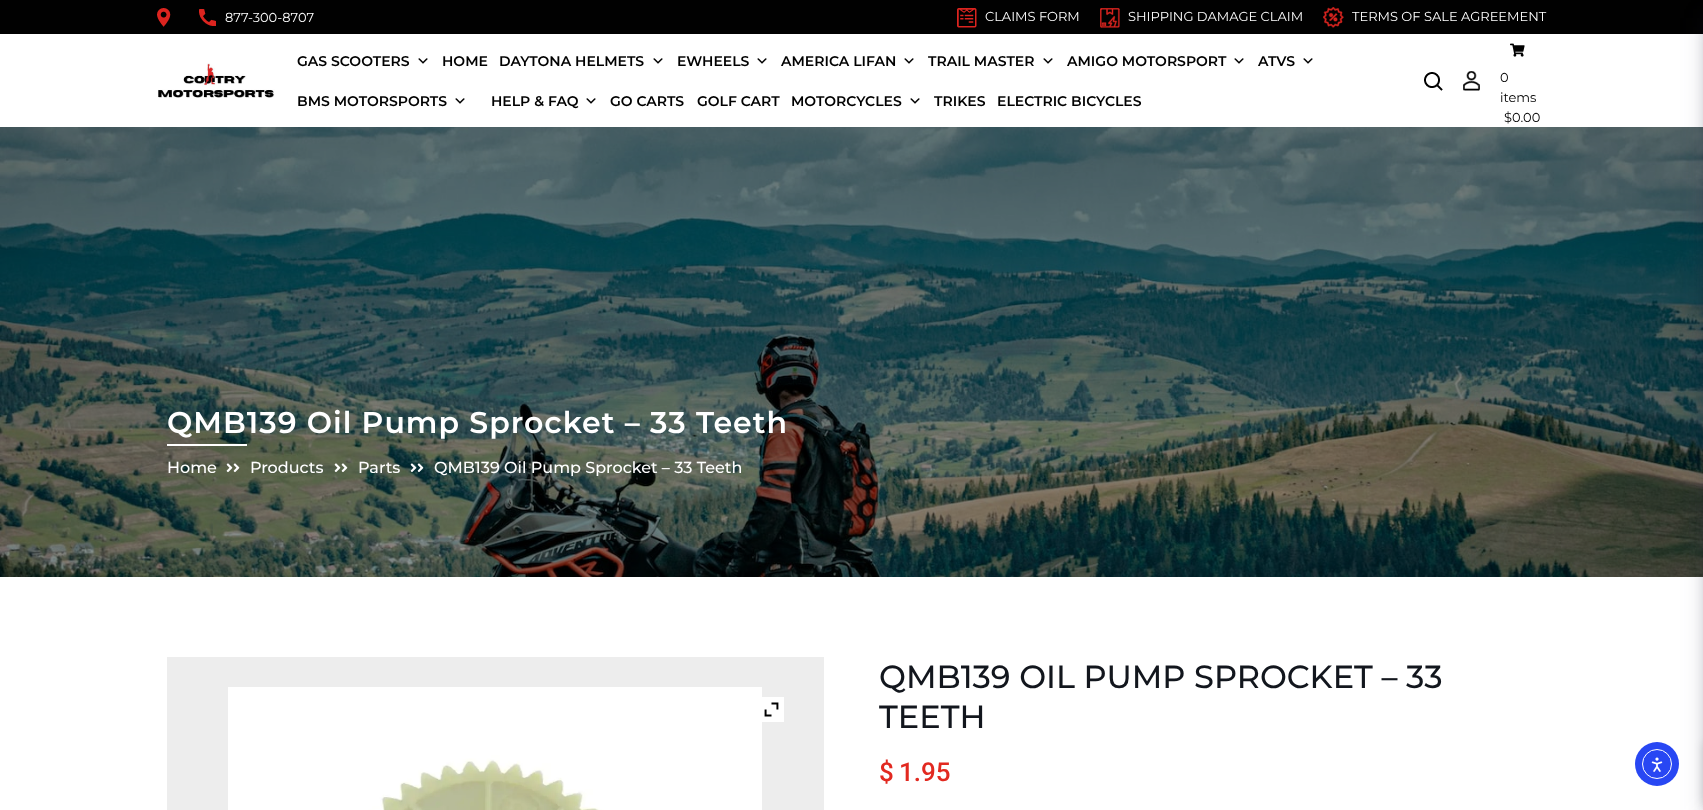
async function draw(canvas) {
	canvas.width = 1703;
	canvas.height = 810;
	const c = canvas.getContext('2d');
	c.miterLimit = 4;
	c.fontKerning = 'normal';
	async function loadImage(src) {
		const img = new Image();
		img.src = src;
		await img.decode();
		return img;
	}

	c.fillStyle = '#fff';
	c.fillRect(0, 0, 1703, 810);
	c.fillStyle = '#010101';
	c.fillRect(0, 0, 1703, 34);
	c.drawImage(await loadImage('img1.png'), 157, 8, 14, 19);
	c.drawImage(await loadImage('img2.png'), 199, 9, 17, 17);
	c.font = '13px Montserrat';
	c.fillStyle = '#fff';
	c.fillText('877-300-8707', 225, 22);
	c.drawImage(await loadImage('img3.png'), 957, 8, 20, 20);
	c.fillText('CLAIMS FORM', 985, 21);
	c.drawImage(await loadImage('img4.png'), 1100, 8, 20, 20);
	c.fillText('SHIPPING DAMAGE CLAIM', 1128, 21);
	c.drawImage(await loadImage('img5.png'), 1323, 7, 21, 21);
	c.fillText('TERMS OF SALE AGREEMENT', 1352, 21);
	c.drawImage(await loadImage('img6.png'), 158, 63, 117, 35);
	c.font = '600 14px Montserrat';
	c.fillStyle = '#010101';
	c.fillText('GAS SCOOTERS', 297, 66);
	c.drawImage(await loadImage('img7.png'), 418, 58, 10, 6);
	c.fillText('HOME', 442, 66);
	c.fillText('DAYTONA HELMETS', 499, 66);
	c.drawImage(await loadImage('img7.png'), 653, 58, 10, 6);
	c.fillText('EWHEELS', 677, 66);
	c.drawImage(await loadImage('img7.png'), 757, 58, 10, 6);
	c.fillText('AMERICA LIFAN', 781, 66);
	c.drawImage(await loadImage('img7.png'), 904, 58, 10, 6);
	c.fillText('TRAIL MASTER', 928, 66);
	c.drawImage(await loadImage('img7.png'), 1043, 58, 10, 6);
	c.fillText('AMIGO MOTORSPORT', 1067, 66);
	c.drawImage(await loadImage('img7.png'), 1234, 58, 10, 6);
	c.fillText('ATVS', 1258, 66);
	c.drawImage(await loadImage('img7.png'), 1303, 58, 10, 6);
	c.fillText('BMS MOTORSPORTS', 297, 106);
	c.drawImage(await loadImage('img7.png'), 455, 98, 10, 6);
	c.fillText('HELP & FAQ', 491, 106);
	c.drawImage(await loadImage('img7.png'), 586, 98, 10, 6);
	for (const [text, x, y] of [
		['GO CARTS', 610, 106],
		['GOLF CART', 697, 106],
		['MOTORCYCLES', 791, 106],
	]) {
		c.fillText(text, x, y);
	}
	c.drawImage(await loadImage('img7.png'), 910, 98, 10, 6);
	c.fillText('TRIKES', 934, 106);
	c.fillText('ELECTRIC BICYCLES', 997, 106);
	c.drawImage(await loadImage('img8.png'), 1424, 72, 19, 19);
	c.drawImage(await loadImage('img9.png'), 1463, 71, 17, 20);
	c.drawImage(await loadImage('img10.png'), 1510, 43, 15, 14);
	c.font = '13px Montserrat';
	for (const [text, x, y] of [
		['0', 1500, 82],
		['items', 1500, 102],
		['$0.00', 1504, 122],
	]) {
		c.fillText(text, x, y);
	}
	c.fillStyle = '#000';
	c.fillRect(0, 127, 1703, 450);
	c.drawImage(await loadImage('img11.png'), 0, 127, 1703, 450);
	c.fillStyle = '#0000004d';
	c.filter = 'blur(8px)';
	c.beginPath();
	c.rect(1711, 16, 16, 794);
	c.fill();
	c.filter = 'none';
	c.fillStyle = '#32325d40';
	c.filter = 'blur(13.5px)';
	c.beginPath();
	c.rect(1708, 18, 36, 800);
	c.fill();
	c.filter = 'none';
	c.letterSpacing = '1px';
	c.font = '600 30px Montserrat';
	c.fillStyle = '#fff';
	c.fillText('QMB139 Oil Pump Sprocket – 33 Teeth', 167, 433);
	c.fillRect(167, 444, 80, 2);
	c.letterSpacing = '0px';
	c.font = '500 16px Montserrat';
	c.fillText('Home', 167, 473);
	c.drawImage(await loadImage('img12.png'), 226, 463, 7, 10);
	c.drawImage(await loadImage('img13.png'), 233, 463, 7, 10);
	c.fillText('Products', 250, 473);
	c.drawImage(await loadImage('img14.png'), 334, 463, 7, 10);
	c.drawImage(await loadImage('img15.png'), 341, 463, 7, 10);
	c.fillText('Parts', 358, 473);
	c.drawImage(await loadImage('img16.png'), 410, 463, 7, 10);
	c.drawImage(await loadImage('img17.png'), 417, 463, 7, 10);
	c.fillText('QMB139 Oil Pump Sprocket – 33 Teeth', 434, 473);
	c.fillStyle = '#ededed';
	c.fillRect(167, 657, 657, 153);
	c.drawImage(await loadImage('img18.png'), 228, 687, 534, 123);
	c.fillStyle = '#fff';
	c.fillRect(762, 697, 22, 25);
	c.drawImage(await loadImage('img19.png'), 764, 702, 15, 15);
	c.font = '500 32px Montserrat';
	c.fillStyle = '#12161d';
	c.fillText('QMB139 OIL PUMP SPROCKET – 33', 879, 688);
	c.fillText('TEETH', 879, 728);
	c.font = '500 26px Roboto';
	c.fillStyle = '#e22920';
	c.fillText('$', 879, 781);
	c.fillText('1.95', 899, 781);
	c.fillStyle = '#2847f3';
	c.beginPath();
	c.arc(1657, 764, 22, 0, 2 * Math.PI);
	c.fill();
	c.beginPath();
	c.arc(1657, 764, 14.5, 0, 2 * Math.PI);
	c.strokeStyle = '#fff';
	c.stroke();
	c.drawImage(await loadImage('img20.png'), 1651, 757, 12, 15);
	c.fillStyle = '#0000001a';
	c.filter = 'blur(5px)';
	c.beginPath();
	c.rect(1703, 743, 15, 62);
	c.fill();
	c.filter = 'none';
}

draw(document.querySelector('canvas'));
